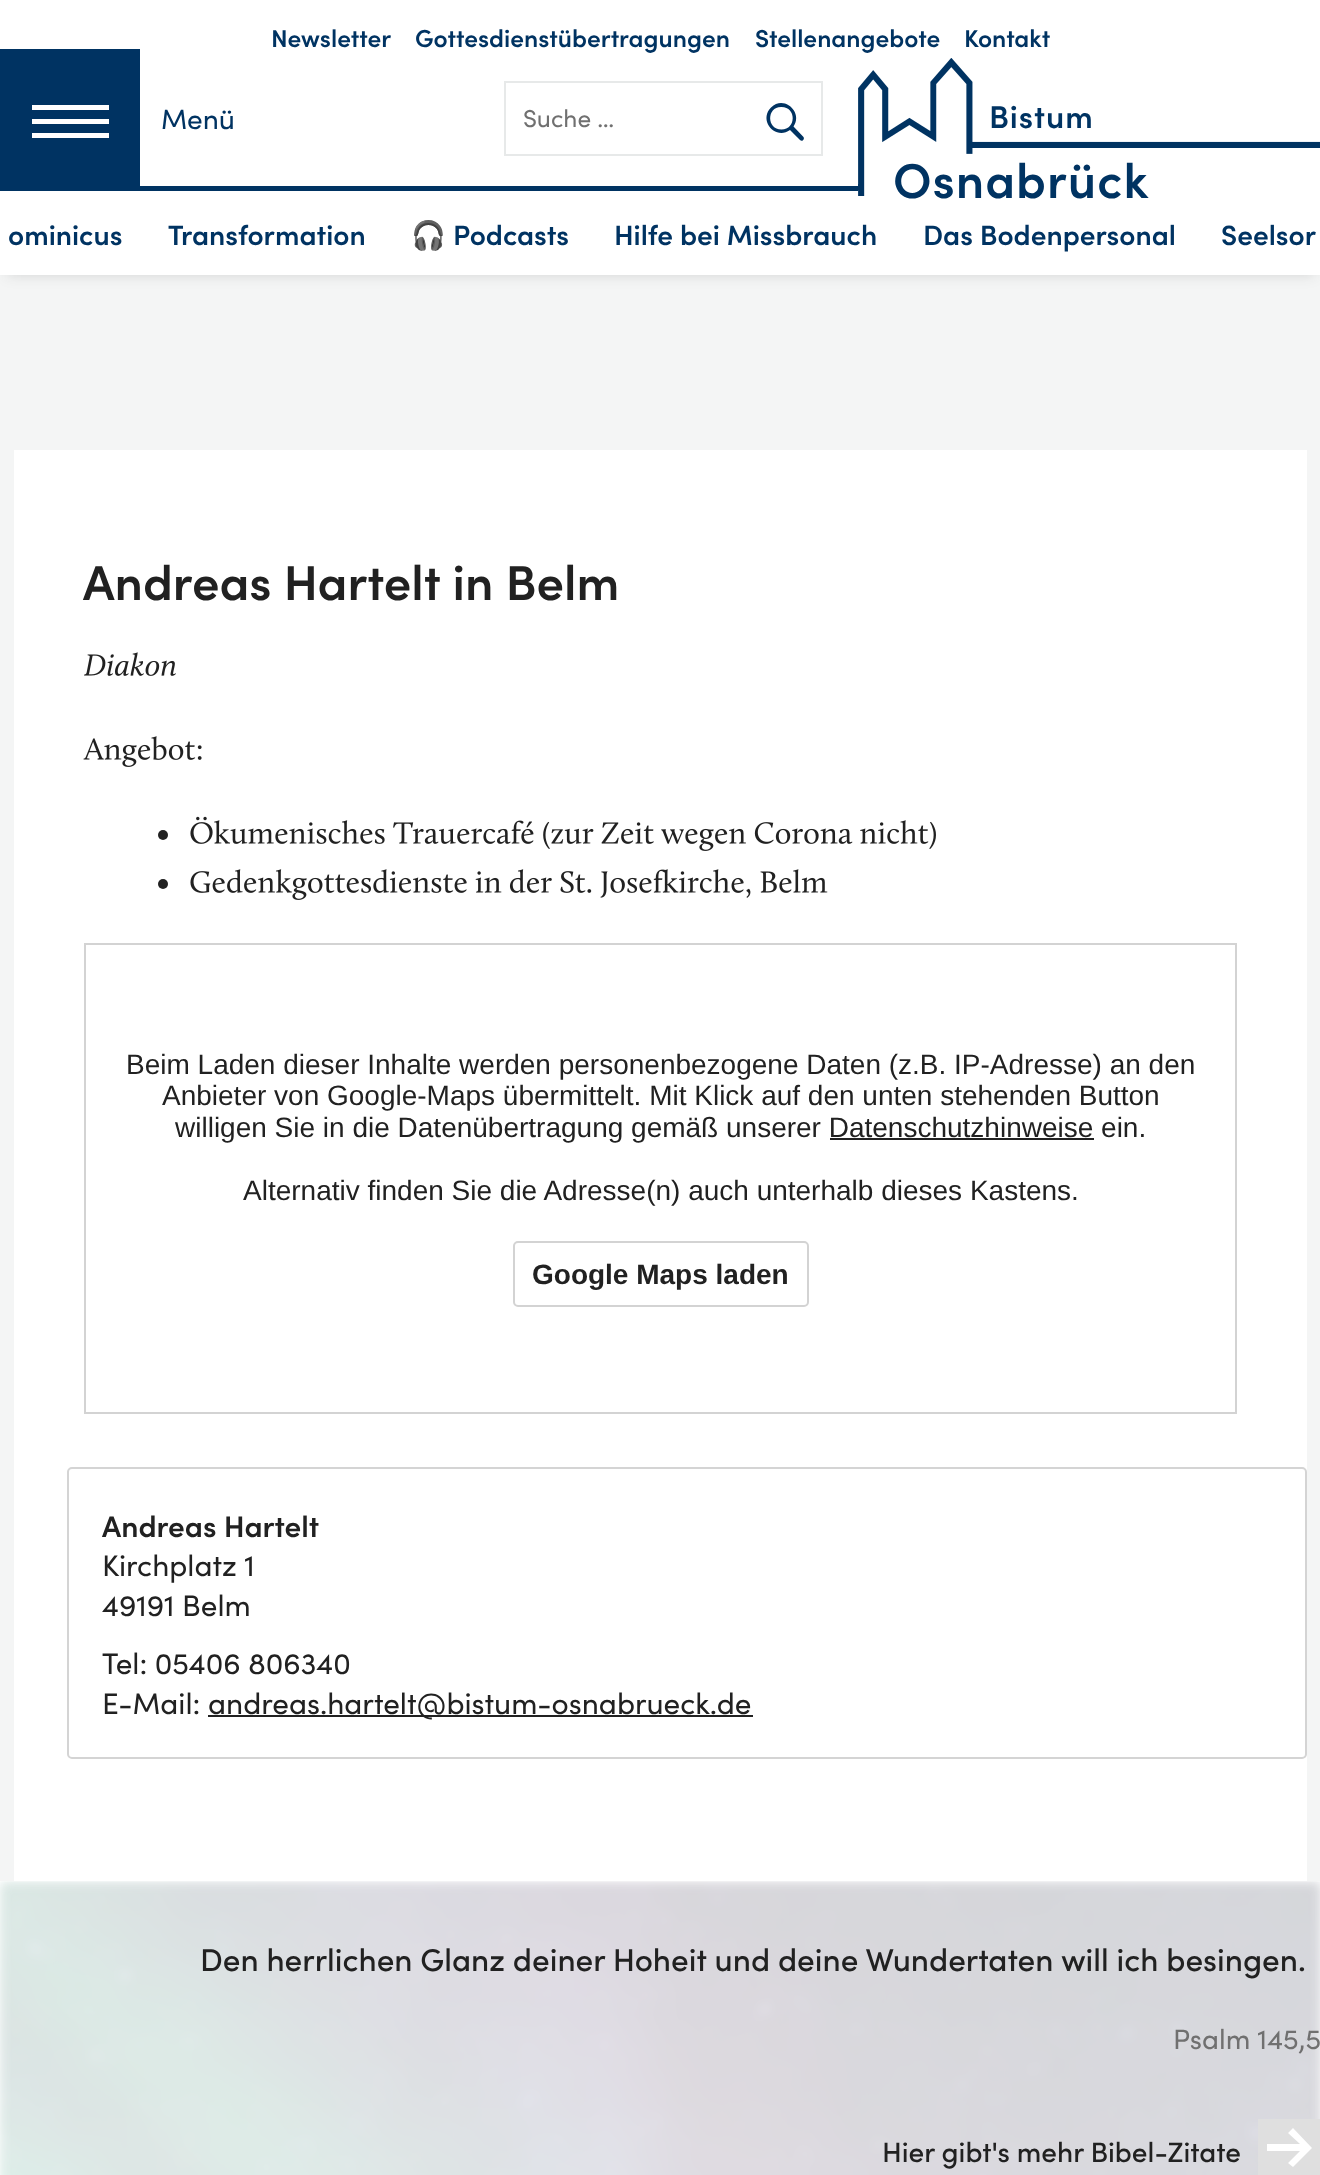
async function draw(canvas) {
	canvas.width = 1320;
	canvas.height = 2175;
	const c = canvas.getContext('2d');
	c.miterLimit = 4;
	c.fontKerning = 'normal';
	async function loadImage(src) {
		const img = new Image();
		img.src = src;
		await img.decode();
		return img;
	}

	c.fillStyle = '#f4f5f5';
	c.fillRect(0, 0, 1320, 2175);
	c.fillStyle = '#21212126';
	c.filter = 'blur(7px)';
	c.beginPath();
	c.rect(7, 14, 1307, 261);
	c.fill();
	c.filter = 'none';
	c.fillStyle = '#fff';
	c.fillRect(0, 0, 1320, 275);
	c.font = '600 24.5px Sofia';
	c.fillStyle = '#003362';
	for (const [text, x, y] of [
		['Newsletter', 271, 47],
		['Gottesdienstübertragungen', 415, 47],
		['Stellenangebote', 755, 47],
		['Kontakt', 964, 47],
	]) {
		c.fillText(text, x, y);
	}
	for (const [x, y, w, h, color] of [
		[0, 49, 140, 137, '#003362'],
		[32, 119, 77, 5, '#fff'],
		[32, 105, 77, 5, '#fff'],
		[32, 133, 77, 5, '#fff'],
	]) {
		c.fillStyle = color;
		c.fillRect(x, y, w, h);
	}
	c.font = '28px Sofia';
	c.fillStyle = '#003362';
	c.fillText('Menü', 161, 129);
	c.strokeStyle = '#e7e9e9';
	c.lineWidth = 2;
	c.strokeRect(505, 82, 317, 73);
	c.font = '24.5px Sofia';
	c.fillStyle = '#707070';
	c.fillText('Suche …', 523, 127);
	c.fillStyle = '#003362';
	c.beginPath();
	c.moveTo(790, 130);
	c.bezierCurveTo(775.5, 140.5, 758, 120.5, 771, 107.5);
	c.bezierCurveTo(784, 94.5, 803.5, 112.5, 793.5, 126.5);
	c.lineTo(803.5, 137);
	c.bezierCurveTo(805, 139.5, 802, 142, 800, 140);
	c.closePath();
	c.moveTo(781.5, 129.5);
	c.bezierCurveTo(796.5, 129.5, 796.5, 107, 781.5, 107);
	c.bezierCurveTo(766.5, 106.5, 766.5, 129.5, 781.5, 129.5);
	c.closePath();
	c.fill('evenodd');
	c.drawImage(await loadImage('img1.png'), 858, 58, 462, 138);
	c.letterSpacing = '1px';
	c.font = '600 31.5px Sofia';
	c.fillText('Bistum', 989, 128);
	c.font = '600 49px Sofia';
	c.fillText('Osnabrück', 893, 198);
	c.fillRect(0, 186, 858, 5);
	c.letterSpacing = '0px';
	c.font = '600 28px Sofia';
	c.fillText('ominicus', 8, 245);
	c.fillText('Transformation', 168, 245);
	c.font = 'bold 28px Noto Color Emoji';
	c.fillText('🎧', 411, 245);
	c.font = '600 28px Sofia';
	for (const [text, x, y] of [
		['Podcasts', 453, 245],
		['Hilfe bei Missbrauch', 614, 245],
		['Das Bodenpersonal', 923, 245],
		['Seelsor', 1221, 245],
	]) {
		c.fillText(text, x, y);
	}
	c.fillStyle = '#fff';
	c.fillRect(14, 450, 1293, 1431);
	c.font = '600 49px Sofia';
	c.fillStyle = '#212121';
	c.fillText('Andreas Hartelt in Belm', 83, 600);
	c.drawImage(await loadImage('img2.png'), 84, 652, 92, 24);
	c.drawImage(await loadImage('img3.png'), 83, 736, 119, 31);
	c.beginPath();
	c.arc(163, 835, 5, 0, 2 * Math.PI);
	c.fill();
	c.drawImage(await loadImage('img4.png'), 190, 816, 746, 35);
	c.beginPath();
	c.arc(163, 884, 5, 0, 2 * Math.PI);
	c.fill();
	c.drawImage(await loadImage('img5.png'), 190, 869, 638, 31);
	c.strokeStyle = '#d3d3d3';
	c.strokeRect(85, 944, 1151, 469);
	c.font = '28px Liberation Sans';
	for (const [text, x, y] of [
		['Beim Laden dieser Inhalte werden personenbezogene Daten (z.B. IP-Adresse) an den', 126, 1074],
		['Anbieter von Google-Maps übermittelt. Mit Klick auf den unten stehenden Button', 162, 1105],
		['willigen Sie in die Datenübertragung gemäß unserer Datenschutzhinweise ein.', 175, 1137],
	]) {
		c.fillText(text, x, y);
	}
	c.fillRect(830, 1138, 264, 2);
	c.fillText('Alternativ finden Sie die Adresse(n) auch unterhalb dieses Kastens.', 243, 1200);
	c.beginPath();
	c.roundRect(514, 1242, 294, 64, 4);
	c.stroke();
	c.font = 'bold 28px Liberation Sans';
	c.fillText('Google Maps laden', 532, 1284);
	c.beginPath();
	c.roundRect(68, 1468, 1238, 290, 4);
	c.strokeStyle = '#d4d4d4';
	c.stroke();
	c.font = '600 29.75px Sofia';
	c.fillText('Andreas Hartelt', 102, 1537);
	c.font = '29.75px Sofia';
	for (const [text, x, y] of [
		['Kirchplatz 1', 102, 1576],
		['49191 Belm', 102, 1616],
		['Tel: 05406 806340', 102, 1674],
		['E-Mail:', 102, 1714],
	]) {
		c.fillText(text, x, y);
	}
	c.fillRect(208, 1715, 545, 2);
	c.fillText('andreas.hartelt@bistum-osnabrueck.de', 208, 1714);
	c.fillStyle = '#fff';
	c.fillRect(0, 1881, 1320, 294);
	c.drawImage(await loadImage('img6.png'), 0, 1881, 1320, 294);
	c.font = '500 31.5px Sofia';
	c.fillStyle = '#212121';
	c.fillText('Den herrlichen Glanz deiner Hoheit und deine Wundertaten will ich besingen.', 200, 1971);
	c.font = '28px Sofia';
	c.fillStyle = '#707070';
	c.fillText('Psalm 145,5', 1173, 2049);
	c.font = '500 28px Sofia';
	c.fillStyle = '#212121';
	c.fillText('Hier gibt\'s mehr Bibel-Zitate', 882, 2162);
	c.fillStyle = '#dfdfdf';
	c.fillRect(1258, 2119, 62, 56);
	c.fillStyle = '#fff';
	c.beginPath();
	c.moveTo(1293, 2128);
	c.lineTo(1288, 2133);
	c.lineTo(1300, 2144);
	c.lineTo(1267, 2144);
	c.lineTo(1267, 2151);
	c.lineTo(1300, 2151);
	c.lineTo(1288, 2163);
	c.lineTo(1293, 2167);
	c.lineTo(1312, 2148);
	c.closePath();
	c.fill();
}

draw(document.querySelector('canvas'));
